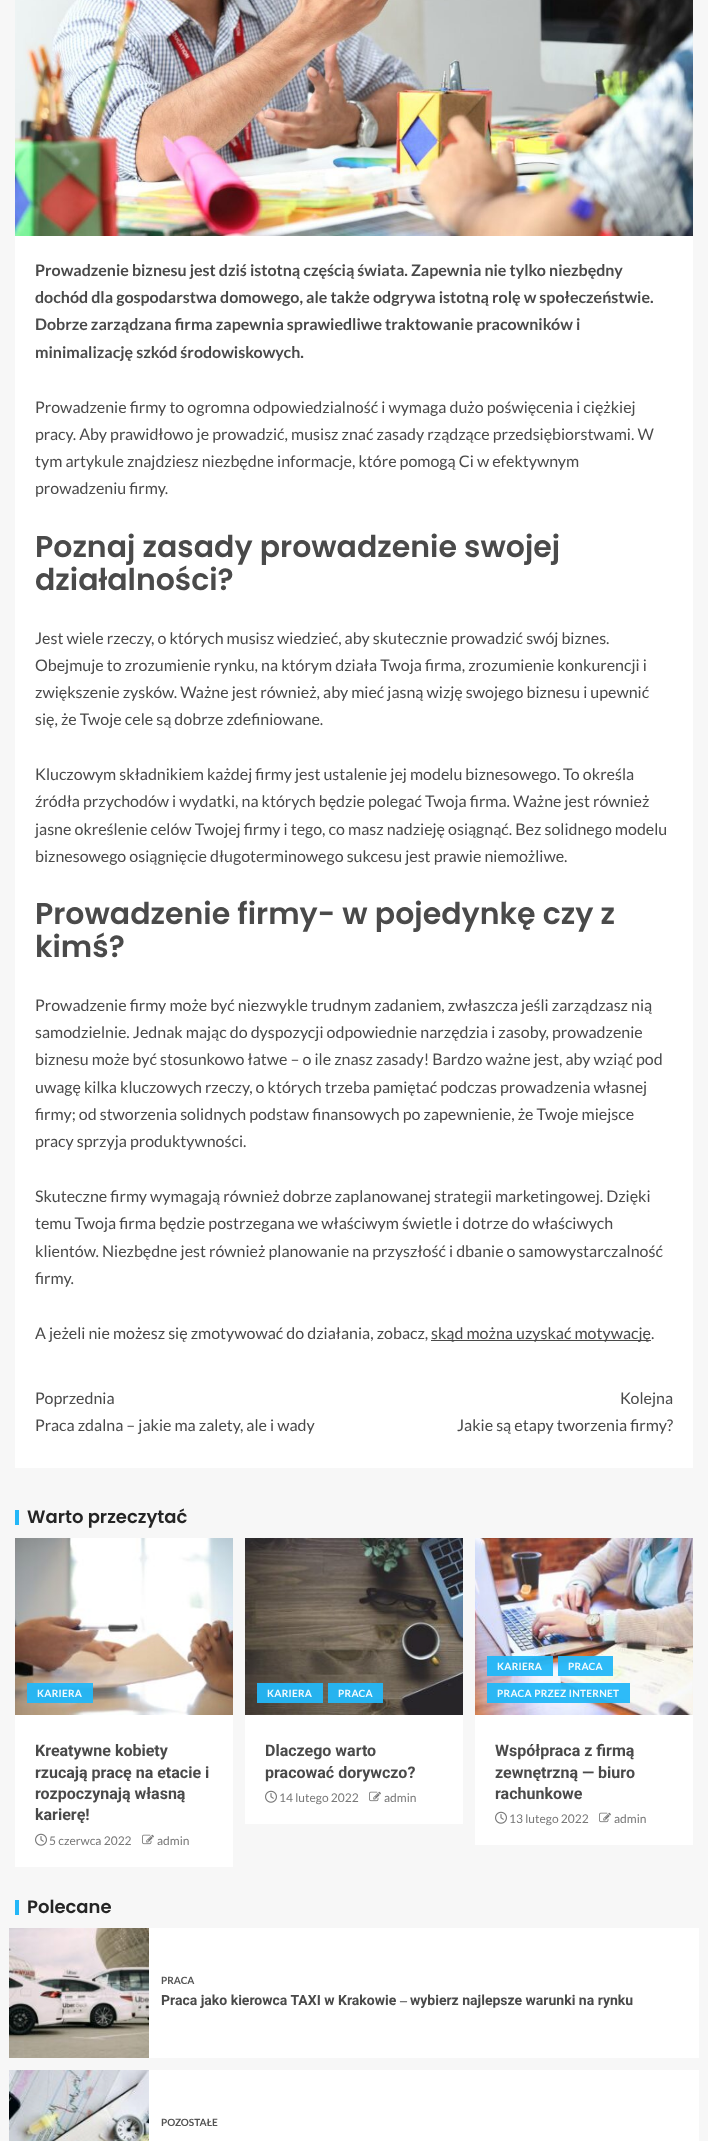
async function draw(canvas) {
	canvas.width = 708;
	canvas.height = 2141;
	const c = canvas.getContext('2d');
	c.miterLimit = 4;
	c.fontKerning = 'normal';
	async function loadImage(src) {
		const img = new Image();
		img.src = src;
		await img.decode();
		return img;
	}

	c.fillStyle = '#f7f7f7';
	c.fillRect(0, 0, 708, 2141);
	c.drawImage(await loadImage('img1.png'), 15, 0, 678, 236);
	c.fillStyle = '#fff';
	c.fillRect(15, 236, 678, 1232);
	c.font = 'bold 16px Lato';
	c.fillStyle = '#4a4a4a';
	for (const [text, x, y] of [
		['Prowadzenie biznesu jest dziś istotną częścią świata. Zapewnia nie tylko niezbędny', 35, 276],
		['dochód dla gospodarstwa domowego, ale także odgrywa istotną rolę w społeczeństwie.', 35, 303],
		['Dobrze zarządzana firma zapewnia sprawiedliwe traktowanie pracowników i', 35, 330],
		['minimalizację szkód środowiskowych.', 35, 358],
	]) {
		c.fillText(text, x, y);
	}
	c.font = '16px Lato';
	for (const [text, x, y] of [
		['Prowadzenie firmy to ogromna odpowiedzialność i wymaga dużo poświęcenia i ciężkiej', 35, 413],
		['pracy. Aby prawidłowo je prowadzić, musisz znać zasady rządzące przedsiębiorstwami. W', 35, 440],
		['tym artykule znajdziesz niezbędne informacje, które pomogą Ci w efektywnym', 35, 467],
		['prowadzeniu firmy.', 35, 494],
	]) {
		c.fillText(text, x, y);
	}
	c.font = '600 30px Poppins';
	c.fillText('Poznaj zasady prowadzenie swojej', 35, 557);
	c.fillText('działalności?', 35, 590);
	c.font = '16px Lato';
	for (const [text, x, y] of [
		['Jest wiele rzeczy, o których musisz wiedzieć, aby skutecznie prowadzić swój biznes.', 35, 644],
		['Obejmuje to zrozumienie rynku, na którym działa Twoja firma, zrozumienie konkurencji i', 35, 671],
		['zwiększenie zysków. Ważne jest również, aby mieć jasną wizję swojego biznesu i upewnić', 35, 698],
		['się, że Twoje cele są dobrze zdefiniowane.', 35, 725],
		['Kluczowym składnikiem każdej firmy jest ustalenie jej modelu biznesowego. To określa', 35, 780],
		['źródła przychodów i wydatki, na których będzie polegać Twoja firma. Ważne jest również', 35, 807],
		['jasne określenie celów Twojej firmy i tego, co masz nadzieję osiągnąć. Bez solidnego modelu', 35, 835],
		['biznesowego osiągnięcie długoterminowego sukcesu jest prawie niemożliwe.', 35, 862],
	]) {
		c.fillText(text, x, y);
	}
	c.font = '600 30px Poppins';
	c.fillText('Prowadzenie firmy- w pojedynkę czy z', 35, 924);
	c.fillText('kimś?', 35, 957);
	c.font = '16px Lato';
	for (const [text, x, y] of [
		['Prowadzenie firmy może być niezwykle trudnym zadaniem, zwłaszcza jeśli zarządzasz nią', 35, 1011],
		['samodzielnie. Jednak mając do dyspozycji odpowiednie narzędzia i zasoby, prowadzenie', 35, 1038],
		['biznesu może być stosunkowo łatwe – o ile znasz zasady! Bardzo ważne jest, aby wziąć pod', 35, 1065],
		['uwagę kilka kluczowych rzeczy, o których trzeba pamiętać podczas prowadzenia własnej', 35, 1093],
		['firmy; od stworzenia solidnych podstaw finansowych po zapewnienie, że Twoje miejsce', 35, 1120],
		['pracy sprzyja produktywności.', 35, 1147],
		['Skuteczne firmy wymagają również dobrze zaplanowanej strategii marketingowej. Dzięki', 35, 1202],
		['temu Twoja firma będzie postrzegana we właściwym świetle i dotrze do właściwych', 35, 1229],
		['klientów. Niezbędne jest również planowanie na przyszłość i dbanie o samowystarczalność', 35, 1257],
		['firmy.', 35, 1284],
		['A jeżeli nie możesz się zmotywować do działania, zobacz,', 35, 1339],
	]) {
		c.fillText(text, x, y);
	}
	c.fillRect(431, 1340, 220, 1);
	for (const [text, x, y] of [
		['skąd można uzyskać motywację.', 431, 1339],
		['Poprzednia', 35, 1404],
		['Praca zdalna – jakie ma zalety, ale i wady', 35, 1431],
		['Kolejna', 620, 1404],
		['Jakie są etapy tworzenia firmy?', 457, 1431],
	]) {
		c.fillText(text, x, y);
	}
	c.fillStyle = '#23b7f8';
	c.fillRect(15, 1510, 4, 15);
	c.font = '600 18px Poppins';
	c.fillStyle = '#252525';
	c.fillText('Warto przeczytać', 27, 1523);
	c.drawImage(await loadImage('img2.png'), 15, 1538, 218, 177);
	c.fillStyle = '#23b7f8f2';
	c.fillRect(27, 1683, 66, 20);
	c.letterSpacing = '0.3px';
	c.font = 'bold 10px Lato';
	c.fillStyle = '#f4fbfe';
	c.fillText('KARIERA', 37, 1697);
	c.fillStyle = '#fff';
	c.fillRect(15, 1715, 218, 152);
	c.letterSpacing = '0px';
	c.font = 'bold 16px Roboto';
	c.fillStyle = '#4a4a4a';
	for (const [text, x, y] of [
		['Kreatywne kobiety', 35, 1756],
		['rzucają pracę na etacie i', 35, 1778],
		['rozpoczynają własną', 35, 1799],
		['karierę!', 35, 1820],
	]) {
		c.fillText(text, x, y);
	}
	c.drawImage(await loadImage('img3.png'), 35, 1833, 12, 13);
	c.font = '12px Lato';
	c.fillStyle = '#777';
	c.fillText('5 czerwca 2022', 49, 1845);
	c.drawImage(await loadImage('img4.png'), 142, 1834, 12, 11);
	c.fillText('admin', 157, 1845);
	c.drawImage(await loadImage('img5.png'), 245, 1538, 218, 177);
	c.fillStyle = '#23b7f8f2';
	c.fillRect(257, 1683, 66, 20);
	c.letterSpacing = '0.3px';
	c.font = 'bold 10px Lato';
	c.fillStyle = '#f4fbfe';
	c.fillText('KARIERA', 267, 1697);
	c.fillStyle = '#23b7f8f2';
	c.fillRect(328, 1683, 55, 20);
	c.fillStyle = '#f4fbfe';
	c.fillText('PRACA', 338, 1697);
	c.fillStyle = '#fff';
	c.fillRect(245, 1715, 218, 109);
	c.letterSpacing = '0px';
	c.font = 'bold 16px Roboto';
	c.fillStyle = '#4a4a4a';
	c.fillText('Dlaczego warto', 265, 1756);
	c.fillText('pracować dorywczo?', 265, 1778);
	c.drawImage(await loadImage('img3.png'), 265, 1790, 12, 13);
	c.font = '12px Lato';
	c.fillStyle = '#777';
	c.fillText('14 lutego 2022', 279, 1802);
	c.drawImage(await loadImage('img4.png'), 369, 1791, 12, 11);
	c.fillText('admin', 384, 1802);
	c.drawImage(await loadImage('img6.png'), 475, 1538, 218, 177);
	c.fillStyle = '#23b7f8f2';
	c.fillRect(487, 1656, 66, 20);
	c.letterSpacing = '0.3px';
	c.font = 'bold 10px Lato';
	c.fillStyle = '#f4fbfe';
	c.fillText('KARIERA', 497, 1670);
	c.fillStyle = '#23b7f8f2';
	c.fillRect(558, 1656, 55, 20);
	c.fillStyle = '#f4fbfe';
	c.fillText('PRACA', 568, 1670);
	c.fillStyle = '#23b7f8f2';
	c.fillRect(487, 1683, 143, 20);
	c.fillStyle = '#f4fbfe';
	c.fillText('PRACA PRZEZ INTERNET', 497, 1697);
	c.fillStyle = '#fff';
	c.fillRect(475, 1715, 218, 130);
	c.letterSpacing = '0px';
	c.font = 'bold 16px Roboto';
	c.fillStyle = '#4a4a4a';
	for (const [text, x, y] of [
		['Współpraca z firmą', 495, 1756],
		['zewnętrzną — biuro', 495, 1778],
		['rachunkowe', 495, 1799],
	]) {
		c.fillText(text, x, y);
	}
	c.drawImage(await loadImage('img3.png'), 495, 1811, 12, 13);
	c.font = '12px Lato';
	c.fillStyle = '#777';
	c.fillText('13 lutego 2022', 509, 1823);
	c.drawImage(await loadImage('img4.png'), 599, 1812, 12, 11);
	c.fillText('admin', 614, 1823);
	c.fillStyle = '#23b7f8';
	c.fillRect(15, 1900, 4, 15);
	c.font = '600 18px Poppins';
	c.fillStyle = '#252525';
	c.fillText('Polecane', 27, 1913);
	c.fillStyle = '#fff';
	c.fillRect(149, 1928, 550, 130);
	c.drawImage(await loadImage('img7.png'), 9, 1928, 140, 130);
	c.font = 'bold 10px Lato';
	c.fillStyle = '#535353';
	c.fillText('PRACA', 161, 1984);
	c.font = 'bold 14px Roboto';
	c.fillStyle = '#4a4a4a';
	c.fillText('Praca jako kierowca TAXI w Krakowie', 161, 2005);
	c.font = 'bold 14px Liberation Serif';
	c.fillText('‒', 400, 2005);
	c.font = 'bold 14px Roboto';
	c.fillText('wybierz najlepsze warunki na rynku', 410, 2005);
	c.fillStyle = '#fff';
	c.fillRect(149, 2070, 550, 71);
	c.drawImage(await loadImage('img8.png'), 9, 2070, 140, 71);
	c.font = 'bold 10px Lato';
	c.fillStyle = '#535353';
	c.fillText('POZOSTAŁE', 161, 2126);
}

draw(document.querySelector('canvas'));
